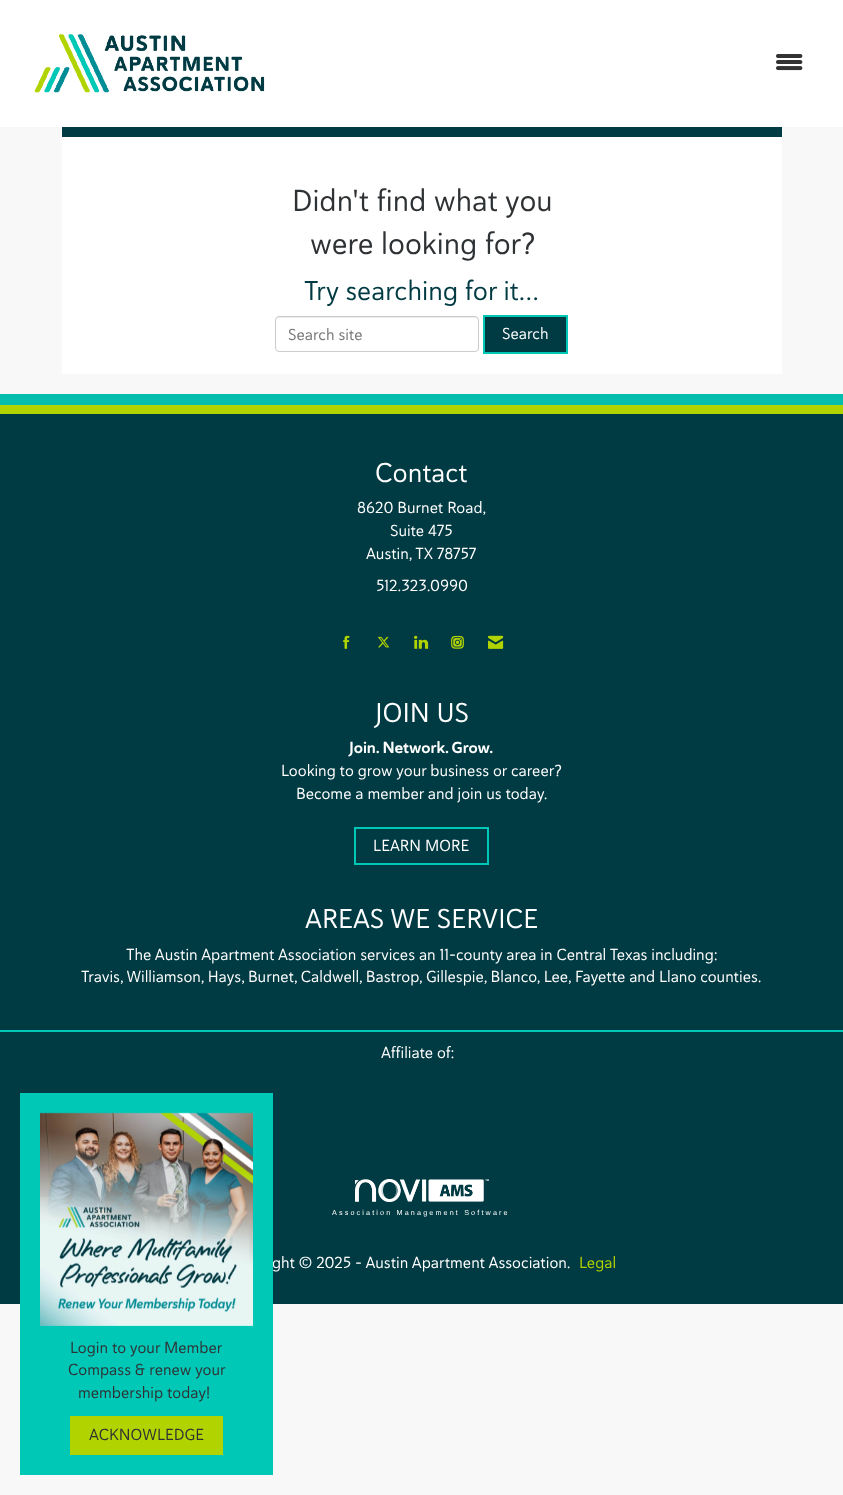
async function draw(canvas) {
	canvas.width = 843;
	canvas.height = 1495;
	const c = canvas.getContext('2d');
	c.miterLimit = 4;
	c.fontKerning = 'normal';
	async function loadImage(src) {
		const img = new Image();
		img.src = src;
		await img.decode();
		return img;
	}

	c.fillStyle = '#f8f8f8';
	c.fillRect(0, 0, 843, 1495);
	c.fillStyle = '#fff';
	c.fillRect(0, 0, 843, 127);
	c.drawImage(await loadImage('img1.png'), 34, 34, 231, 59);
	c.drawImage(await loadImage('img2.png'), 776, 54, 27, 17);
	c.fillStyle = '#003a42';
	c.fillRect(62, 127, 720, 10);
	c.fillStyle = '#fff';
	c.fillRect(62, 137, 720, 237);
	c.font = '500 30.5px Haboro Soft';
	c.fillStyle = '#2f3234';
	c.fillText('Didn\'t find what you', 292, 211);
	c.fillText('were looking for?', 310, 254);
	c.font = '500 27.25px Haboro Soft';
	c.fillStyle = '#003a42';
	c.fillText('Try searching for it…', 304, 300);
	c.fillStyle = '#ececec';
	c.beginPath();
	c.moveTo(279, 318);
	c.lineTo(475, 318);
	c.bezierCurveTo(477, 318, 478, 319, 478, 321);
	c.bezierCurveTo(478, 319, 477, 317, 475, 317);
	c.lineTo(279, 317);
	c.bezierCurveTo(277, 317, 276, 319, 276, 321);
	c.bezierCurveTo(276, 319, 277, 318, 279, 318);
	c.closePath();
	c.fill();
	c.beginPath();
	c.roundRect(275.5, 316.5, 203, 35, 3.5);
	c.strokeStyle = '#ccc';
	c.stroke();
	c.font = '500 16px Haboro Soft';
	c.fillStyle = '#757575';
	c.fillText('Search site', 288, 340);
	c.fillStyle = '#003a42';
	c.beginPath();
	c.rect(484, 316, 83, 37);
	c.fill();
	c.strokeStyle = '#00c8b7';
	c.lineWidth = 2;
	c.stroke();
	c.fillStyle = '#fff';
	c.fillText('Search', 502, 339);
	for (const [x, y, w, h, color] of [
		[0, 394, 843, 11, '#05bdad'],
		[0, 405, 843, 9, '#b1d400'],
		[0, 414, 843, 616, '#003a42'],
	]) {
		c.fillStyle = color;
		c.fillRect(x, y, w, h);
	}
	c.font = '500 27.25px Haboro Soft';
	c.fillStyle = '#fff';
	c.fillText('Contact', 375, 482);
	c.font = '500 16px Haboro Soft';
	for (const [text, x, y] of [
		['8620 Burnet Road,', 357, 513],
		['Suite 475', 390, 536],
		['Austin, TX 78757', 366, 559],
		['512.323.0990', 376, 591],
	]) {
		c.fillText(text, x, y);
	}
	c.drawImage(await loadImage('img3.png'), 343, 635, 7, 14);
	c.drawImage(await loadImage('img4.png'), 377, 636, 13, 12);
	c.drawImage(await loadImage('img5.png'), 414, 635, 15, 14);
	c.drawImage(await loadImage('img6.png'), 451, 635, 13, 14);
	c.drawImage(await loadImage('img7.png'), 488, 635, 16, 14);
	c.font = '500 27.25px Haboro Soft';
	c.fillText('JOIN US', 375, 722);
	c.font = '800 16px Haboro Soft';
	c.fillText('Join. Network. Grow.', 349, 753);
	c.font = '500 16px Haboro Soft';
	c.fillText('Looking to grow your business or career?', 281, 776);
	c.fillText('Become a member and join us today.', 296, 799);
	c.strokeRect(355, 828, 133, 36);
	c.fillText('LEARN MORE', 373, 851);
	c.font = '500 27.25px Haboro Soft';
	c.fillText('AREAS WE SERVICE', 305, 928);
	c.font = '500 16px Haboro Soft';
	c.fillText('The Austin Apartment Association services an 11-county area in Central Texas including:', 126, 960);
	c.fillText('Travis, Williamson, Hays, Burnet, Caldwell, Bastrop, Gillespie, Blanco, Lee, Fayette and Llano counties.', 81, 982);
	c.fillStyle = '#003a42';
	c.fillRect(0, 1032, 843, 272);
	c.fillStyle = '#00c8b7';
	c.fillRect(0, 1030, 843, 2);
	c.fillStyle = '#fff';
	c.fillText('Affiliate of:', 381, 1058);
	c.drawImage(await loadImage('img8.png'), 355, 1179, 134, 23);
	c.letterSpacing = '2.15px';
	c.font = '7.2px Liberation Sans';
	c.fillText('Association Management Software', 332, 1215);
	c.letterSpacing = '0px';
	c.font = '500 16px Haboro Soft';
	c.fillText('ght © 2025 - Austin Apartment Association.', 272, 1268);
	c.fillStyle = '#b1d400';
	c.fillText('Legal', 579, 1268);
	c.fillStyle = '#00c8b7';
	c.fillRect(20, 1093, 253, 382);
	c.drawImage(await loadImage('img9.png'), 40, 1112, 213, 214);
	c.fillStyle = '#2f3234';
	for (const [text, x, y] of [
		['Login to your Member', 70, 1353],
		['Compass & renew your', 68, 1375],
		['membership today!', 78, 1398],
	]) {
		c.fillText(text, x, y);
	}
	c.fillStyle = '#b1d400';
	c.fillRect(70, 1416, 153, 39);
	c.fillStyle = '#2f3234';
	c.fillText('ACKNOWLEDGE', 89, 1440);
}

draw(document.querySelector('canvas'));
